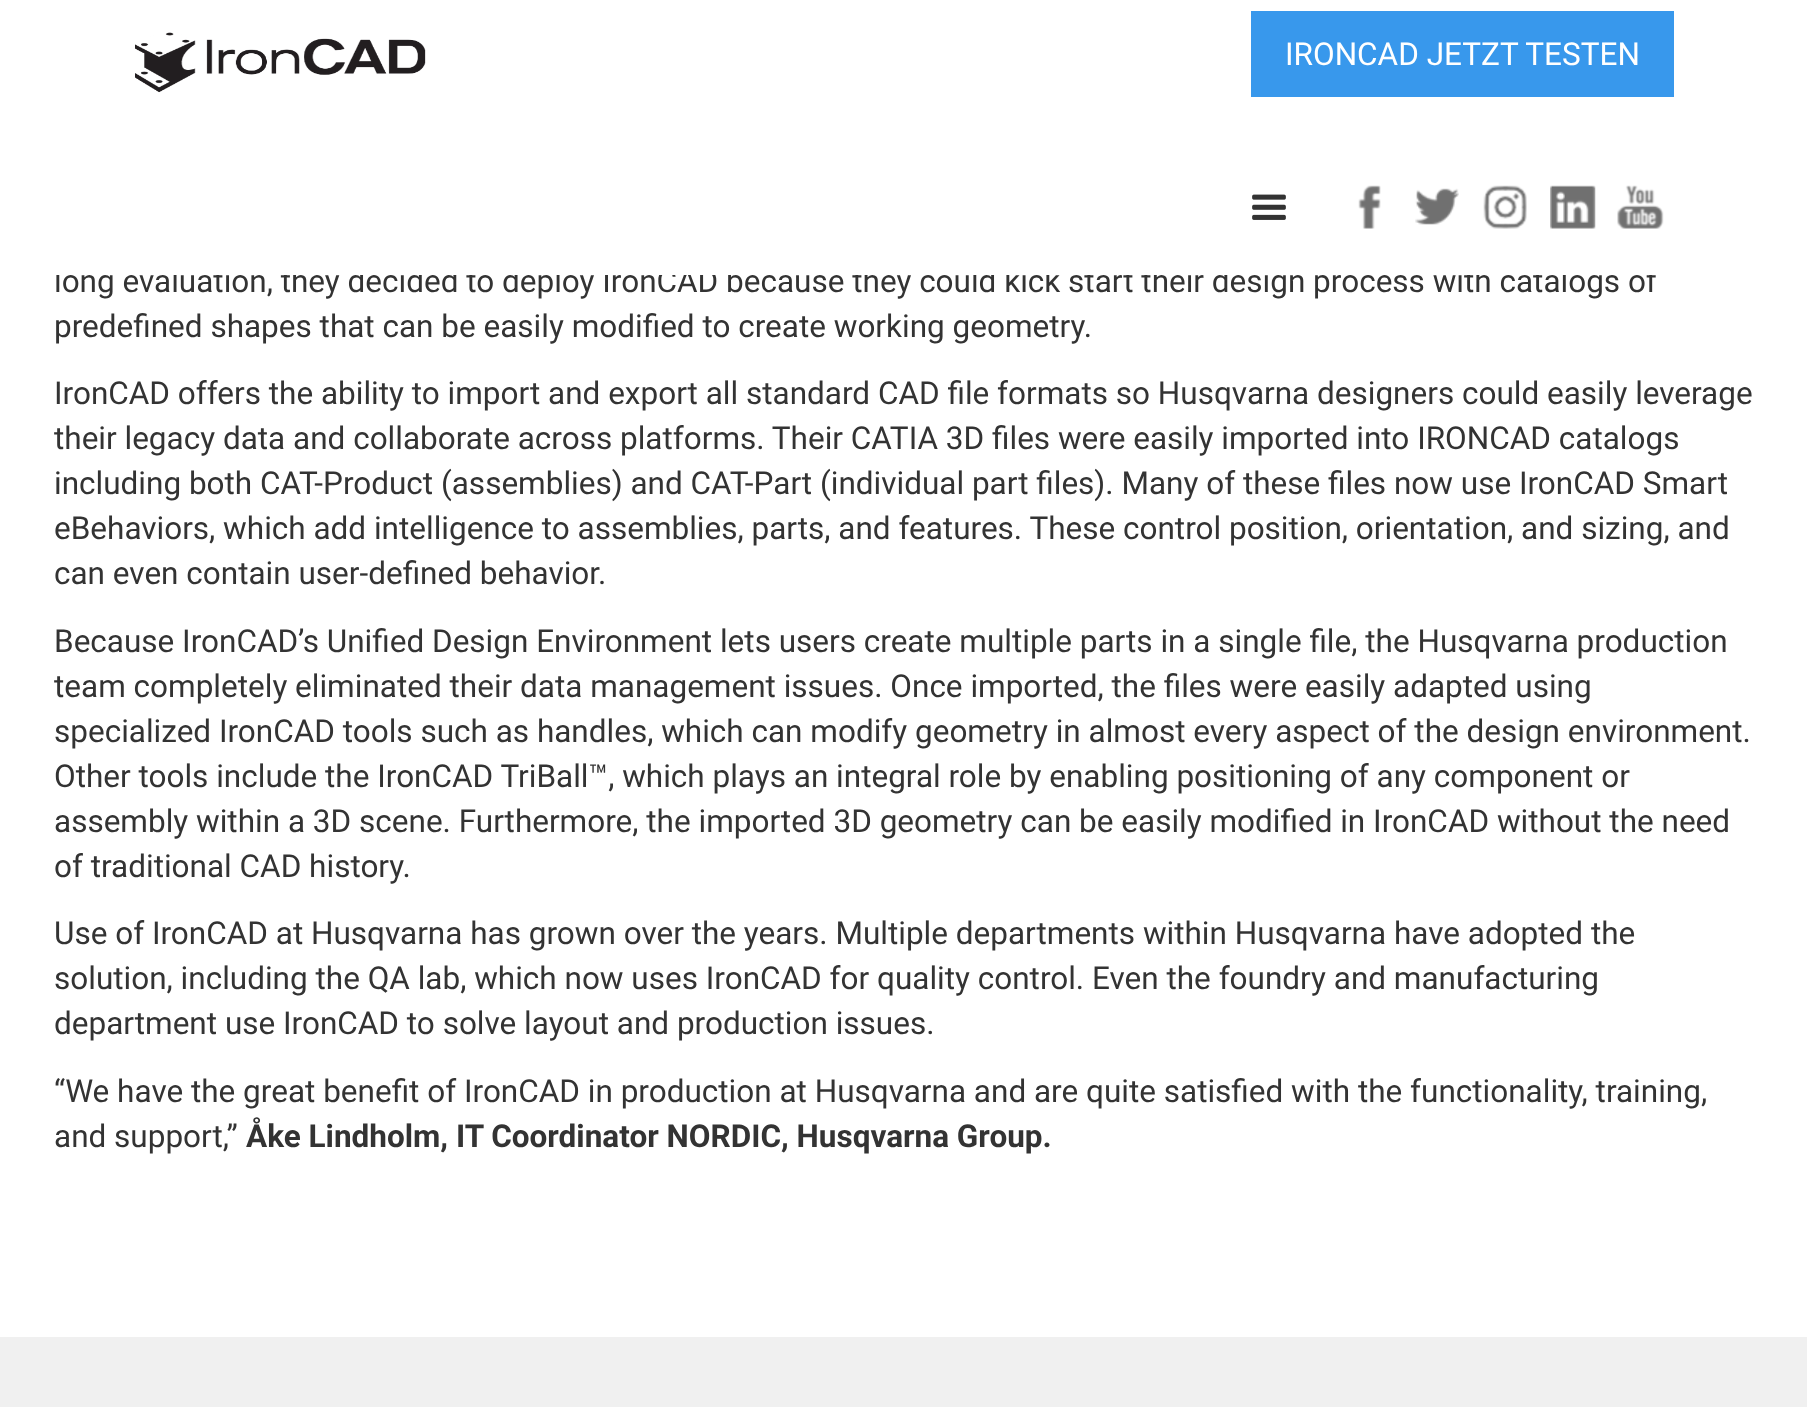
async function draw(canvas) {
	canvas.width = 1807;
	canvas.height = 1407;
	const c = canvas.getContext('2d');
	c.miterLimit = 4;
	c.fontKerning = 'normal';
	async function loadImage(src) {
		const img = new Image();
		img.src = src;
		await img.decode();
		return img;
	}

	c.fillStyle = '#fff';
	c.fillRect(0, 0, 1807, 1407);
	c.font = '31.5px Roboto';
	c.fillStyle = '#333';
	c.fillText('long evaluation, they decided to deploy IronCAD because they could kick start their design process with catalogs of', 54, 292);
	c.fillStyle = '#fff';
	c.fillRect(56, 268, 1602, 7);
	c.drawImage(await loadImage('img1.png'), 135, 32, 291, 61);
	c.fillStyle = '#3898ec';
	c.fillRect(1251, 11, 423, 86);
	c.fillStyle = '#fff';
	c.fillText('IRONCAD JETZT TESTEN', 1285, 65);
	c.drawImage(await loadImage('img2.png'), 1252, 194, 34, 26);
	c.drawImage(await loadImage('img3.png'), 1358, 185, 23, 44);
	c.drawImage(await loadImage('img4.png'), 1415, 188, 44, 37);
	c.drawImage(await loadImage('img5.png'), 1483, 185, 44, 44);
	c.drawImage(await loadImage('img6.png'), 1550, 185, 46, 44);
	c.drawImage(await loadImage('img7.png'), 1617, 185, 47, 44);
	c.fillStyle = '#333';
	for (const [text, x, y] of [
		['predefined shapes that can be easily modified to create working geometry.', 54, 337],
		['IronCAD offers the ability to import and export all standard CAD file formats so Husqvarna designers could easily leverage', 54, 404],
		['their legacy data and collaborate across platforms. Their CATIA 3D files were easily imported into IRONCAD catalogs', 54, 449],
		['including both CAT-Product (assemblies) and CAT-Part (individual part files). Many of these files now use IronCAD Smart', 54, 494],
		['eBehaviors, which add intelligence to assemblies, parts, and features. These control position, orientation, and sizing, and', 54, 539],
		['can even contain user-defined behavior.', 54, 584],
		['Because IronCAD’s Unified Design Environment lets users create multiple parts in a single file, the Husqvarna production', 54, 652],
		['team completely eliminated their data management issues. Once imported, the files were easily adapted using', 54, 697],
		['specialized IronCAD tools such as handles, which can modify geometry in almost every aspect of the design environment.', 54, 742],
		['Other tools include the IronCAD TriBall™, which plays an integral role by enabling positioning of any component or', 54, 787],
		['assembly within a 3D scene. Furthermore, the imported 3D geometry can be easily modified in IronCAD without the need', 54, 832],
		['of traditional CAD history.', 54, 877],
		['Use of IronCAD at Husqvarna has grown over the years. Multiple departments within Husqvarna have adopted the', 54, 944],
		['solution, including the QA lab, which now uses IronCAD for quality control. Even the foundry and manufacturing', 54, 989],
		['department use IronCAD to solve layout and production issues.', 54, 1034],
		['“We have the great benefit of IronCAD in production at Husqvarna and are quite satisfied with the functionality, training,', 54, 1102],
		['and support,”', 54, 1147],
	]) {
		c.fillText(text, x, y);
	}
	c.font = 'bold 31.5px Roboto';
	c.fillText('Åke Lindholm, IT Coordinator NORDIC, Husqvarna Group.', 246, 1147);
	c.fillStyle = '#f0f0f0';
	c.fillRect(0, 1337, 1807, 70);
}

draw(document.querySelector('canvas'));
